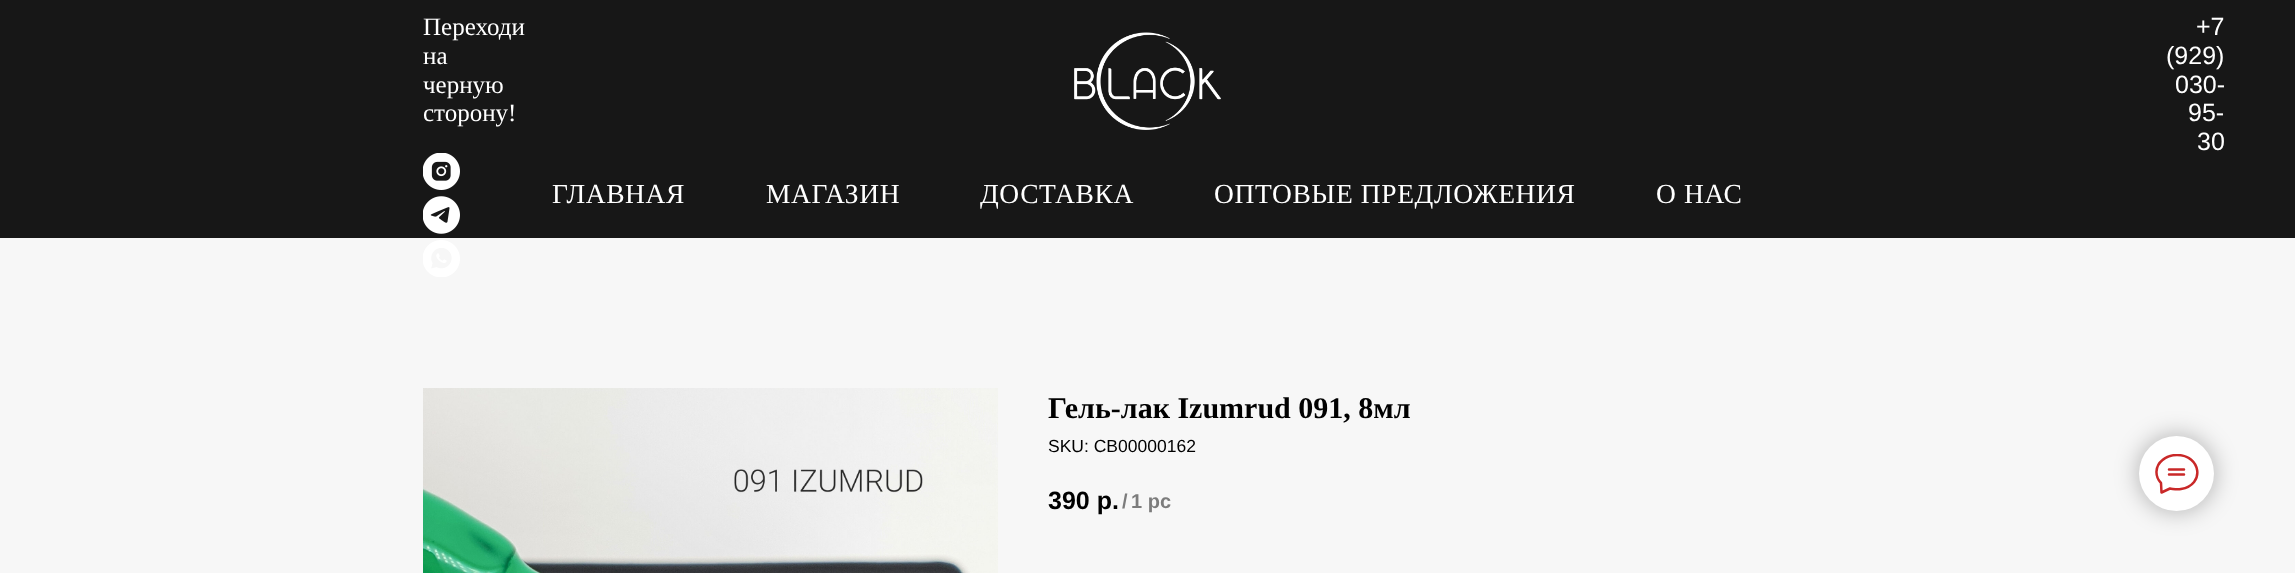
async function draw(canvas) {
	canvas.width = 2295;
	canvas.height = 573;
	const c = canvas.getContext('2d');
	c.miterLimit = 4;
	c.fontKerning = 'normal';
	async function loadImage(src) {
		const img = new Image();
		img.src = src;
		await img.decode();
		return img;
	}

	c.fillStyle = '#171717';
	c.fillRect(0, 0, 2295, 573);
	c.font = '25px Liberation Serif';
	c.fillStyle = '#fff';
	for (const [text, x, y] of [
		['Переходи', 423, 35],
		['на', 423, 64],
		['черную', 423, 93],
		['сторону!', 423, 121],
	]) {
		c.fillText(text, x, y);
	}
	c.drawImage(await loadImage('img1.png'), 423, 153, 37, 37);
	c.drawImage(await loadImage('img2.png'), 423, 196, 37, 38);
	c.fillStyle = '#f7f7f7';
	c.fillRect(0, 238, 2295, 335);
	c.drawImage(await loadImage('img3.png'), 423, 240, 37, 37);
	c.font = '25px Liberation Sans';
	c.fillStyle = '#fff';
	for (const [text, x, y] of [
		['+7', 2196, 35],
		['(929)', 2166, 64],
		['030-', 2175, 93],
		['95-', 2188, 121],
		['30', 2197, 150],
	]) {
		c.fillText(text, x, y);
	}
	c.drawImage(await loadImage('img4.png'), 1074, 32, 147, 98);
	c.letterSpacing = '0.6px';
	c.font = '27.5px Liberation Serif';
	for (const [text, x, y] of [
		['ГЛАВНАЯ', 552, 203],
		['МАГАЗИН', 766, 203],
		['ДОСТАВКА', 980, 203],
		['ОПТОВЫЕ ПРЕДЛОЖЕНИЯ', 1214, 203],
		['О НАС', 1656, 203],
	]) {
		c.fillText(text, x, y);
	}
	c.drawImage(await loadImage('img5.png'), 423, 388, 575, 185);
	c.letterSpacing = '0px';
	c.font = 'bold 30px Liberation Serif';
	c.fillStyle = '#000';
	c.fillText('Гель-лак Izumrud 091, 8мл', 1048, 418);
	c.font = '17.5px Liberation Sans';
	c.fillText('SKU: CB00000162', 1048, 452);
	c.font = 'bold 25px Liberation Sans';
	c.fillText('390 р.', 1048, 509);
	c.font = 'bold 20px Liberation Sans';
	c.fillStyle = '#7c7c7c';
	c.fillText('/', 1122, 508);
	c.fillText('1 pc', 1131, 508);
	c.fillStyle = '#0000004d';
	c.filter = 'blur(12.5px)';
	c.beginPath();
	c.roundRect(2139, 436, 75, 75, 37.5);
	c.fill();
	c.filter = 'none';
	c.fillStyle = '#fff';
	c.beginPath();
	c.arc(2176.5, 473.5, 37.5, 0, 2 * Math.PI);
	c.fill();
	c.save();
	c.beginPath();
	c.rect(2155, 454, 44, 40);
	c.clip();
	c.beginPath();
	c.moveTo(2169, 469.5);
	c.lineTo(2184, 469.5);
	c.moveTo(2169, 474.5);
	c.lineTo(2184, 474.5);
	c.moveTo(2161, 483);
	c.bezierCurveTo(2154.5, 476.5, 2155, 466, 2162.5, 460);
	c.bezierCurveTo(2166.5, 456.5, 2171.5, 455, 2177, 455);
	c.bezierCurveTo(2201, 455, 2205.5, 485, 2181, 489);
	c.bezierCurveTo(2177, 490, 2174, 489, 2170, 488.5);
	c.lineTo(2161.5, 492.5);
	c.closePath();
	c.strokeStyle = '#c92828';
	c.lineWidth = 2.5;
	c.lineCap = 'round';
	c.lineJoin = 'round';
	c.stroke();
	c.restore();
}

draw(document.querySelector('canvas'));
